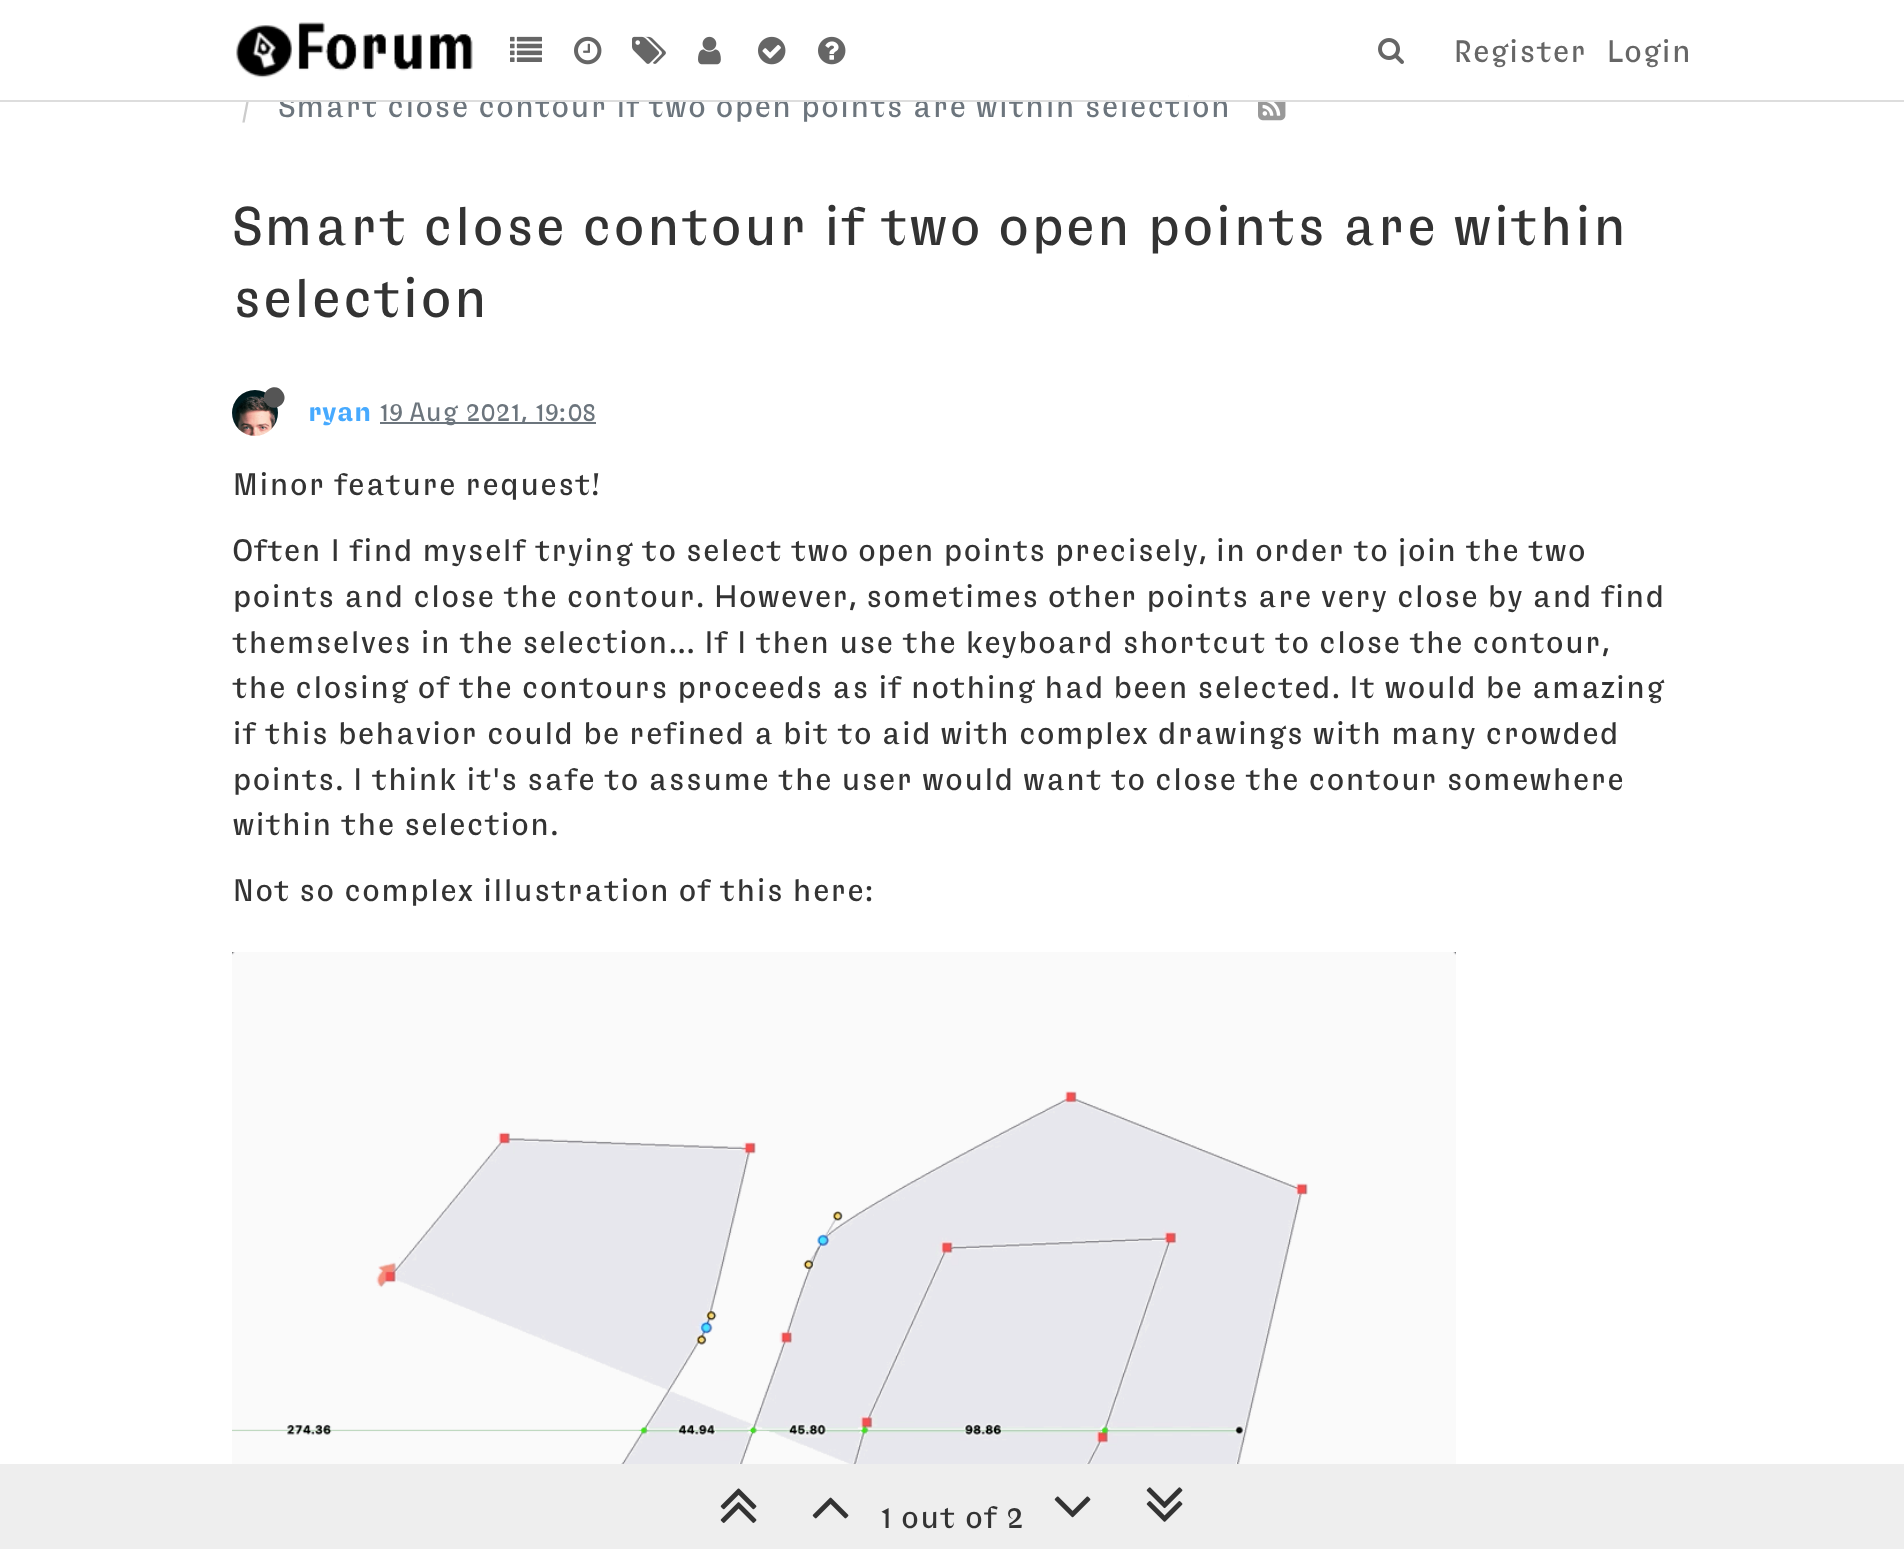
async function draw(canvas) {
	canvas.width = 1904;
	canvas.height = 1549;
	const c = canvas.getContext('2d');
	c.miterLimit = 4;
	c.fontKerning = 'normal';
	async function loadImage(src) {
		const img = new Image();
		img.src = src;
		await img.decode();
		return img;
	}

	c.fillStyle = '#fff';
	c.fillRect(0, 0, 1904, 1549);
	c.font = '32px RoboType';
	c.fillStyle = '#ccc';
	c.fillText('/', 242, 117);
	c.fillStyle = '#6c757d';
	c.fillText('Smart close contour if two open points are within selection', 278, 117);
	c.fillStyle = '#fff';
	c.fillRect(246, 94, 942, 6);
	c.fillStyle = '#ddd';
	c.fillRect(0, 100, 1904, 2);
	c.drawImage(await loadImage('img1.png'), 236, 22, 237, 56);
	c.drawImage(await loadImage('img2.png'), 510, 36, 32, 26);
	c.drawImage(await loadImage('img3.png'), 574, 36, 28, 29);
	c.drawImage(await loadImage('img4.png'), 632, 36, 34, 28);
	c.drawImage(await loadImage('img5.png'), 698, 36, 23, 29);
	c.drawImage(await loadImage('img6.png'), 758, 36, 28, 29);
	c.drawImage(await loadImage('img7.png'), 818, 36, 28, 29);
	c.drawImage(await loadImage('img8.png'), 1378, 38, 26, 26);
	c.fillStyle = '#666';
	c.fillText('Register', 1453, 62);
	c.fillText('Login', 1606, 62);
	c.drawImage(await loadImage('img9.png'), 1258, 102, 28, 19);
	c.font = '56px RoboType';
	c.fillStyle = '#333';
	c.fillText('Smart close contour if two open points are within', 232, 245);
	c.fillText('selection', 232, 317);
	c.drawImage(await loadImage('img10.png'), 232, 390, 46, 46);
	c.fillStyle = '#555';
	c.beginPath();
	c.moveTo(283, 392.5);
	c.bezierCurveTo(290, 404, 272, 414.5, 265.5, 402.5);
	c.bezierCurveTo(258.5, 391, 276.5, 380.5, 283, 392.5);
	c.closePath();
	c.fill();
	c.font = 'bold 27.25px RoboType';
	c.fillStyle = '#47aaff';
	c.fillText('ryan', 308, 421);
	c.fillStyle = '#6c757d';
	c.fillRect(380, 422, 216, 2);
	c.font = '27.25px RoboType';
	c.fillText('19 Aug 2021, 19:08', 379, 421);
	c.font = '32px RoboType';
	c.fillStyle = '#333';
	for (const [text, x, y] of [
		['Minor feature request!', 232, 495],
		['Often I find myself trying to select two open points precisely, in order to join the two', 232, 561],
		['points and close the contour. However, sometimes other points are very close by and find', 232, 607],
		['themselves in the selection... If I then use the keyboard shortcut to close the contour,', 232, 653],
		['the closing of the contours proceeds as if nothing had been selected. It would be amazing', 232, 698],
		['if this behavior could be refined a bit to aid with complex drawings with many crowded', 232, 744],
		['points. I think it\'s safe to assume the user would want to close the contour somewhere', 232, 790],
		['within the selection.', 232, 835],
		['Not so complex illustration of this here:', 232, 901],
	]) {
		c.fillText(text, x, y);
	}
	c.drawImage(await loadImage('img11.png'), 232, 952, 1224, 512);
	c.fillStyle = '#eee';
	c.fillRect(0, 1464, 1904, 85);
	c.drawImage(await loadImage('img12.png'), 720, 1488, 37, 35);
	c.drawImage(await loadImage('img13.png'), 812, 1497, 37, 22);
	c.fillStyle = '#333';
	c.fillText('1 out of 2', 880, 1528);
	c.drawImage(await loadImage('img14.png'), 1054, 1496, 37, 22);
	c.drawImage(await loadImage('img15.png'), 1146, 1487, 37, 35);
}

draw(document.querySelector('canvas'));
